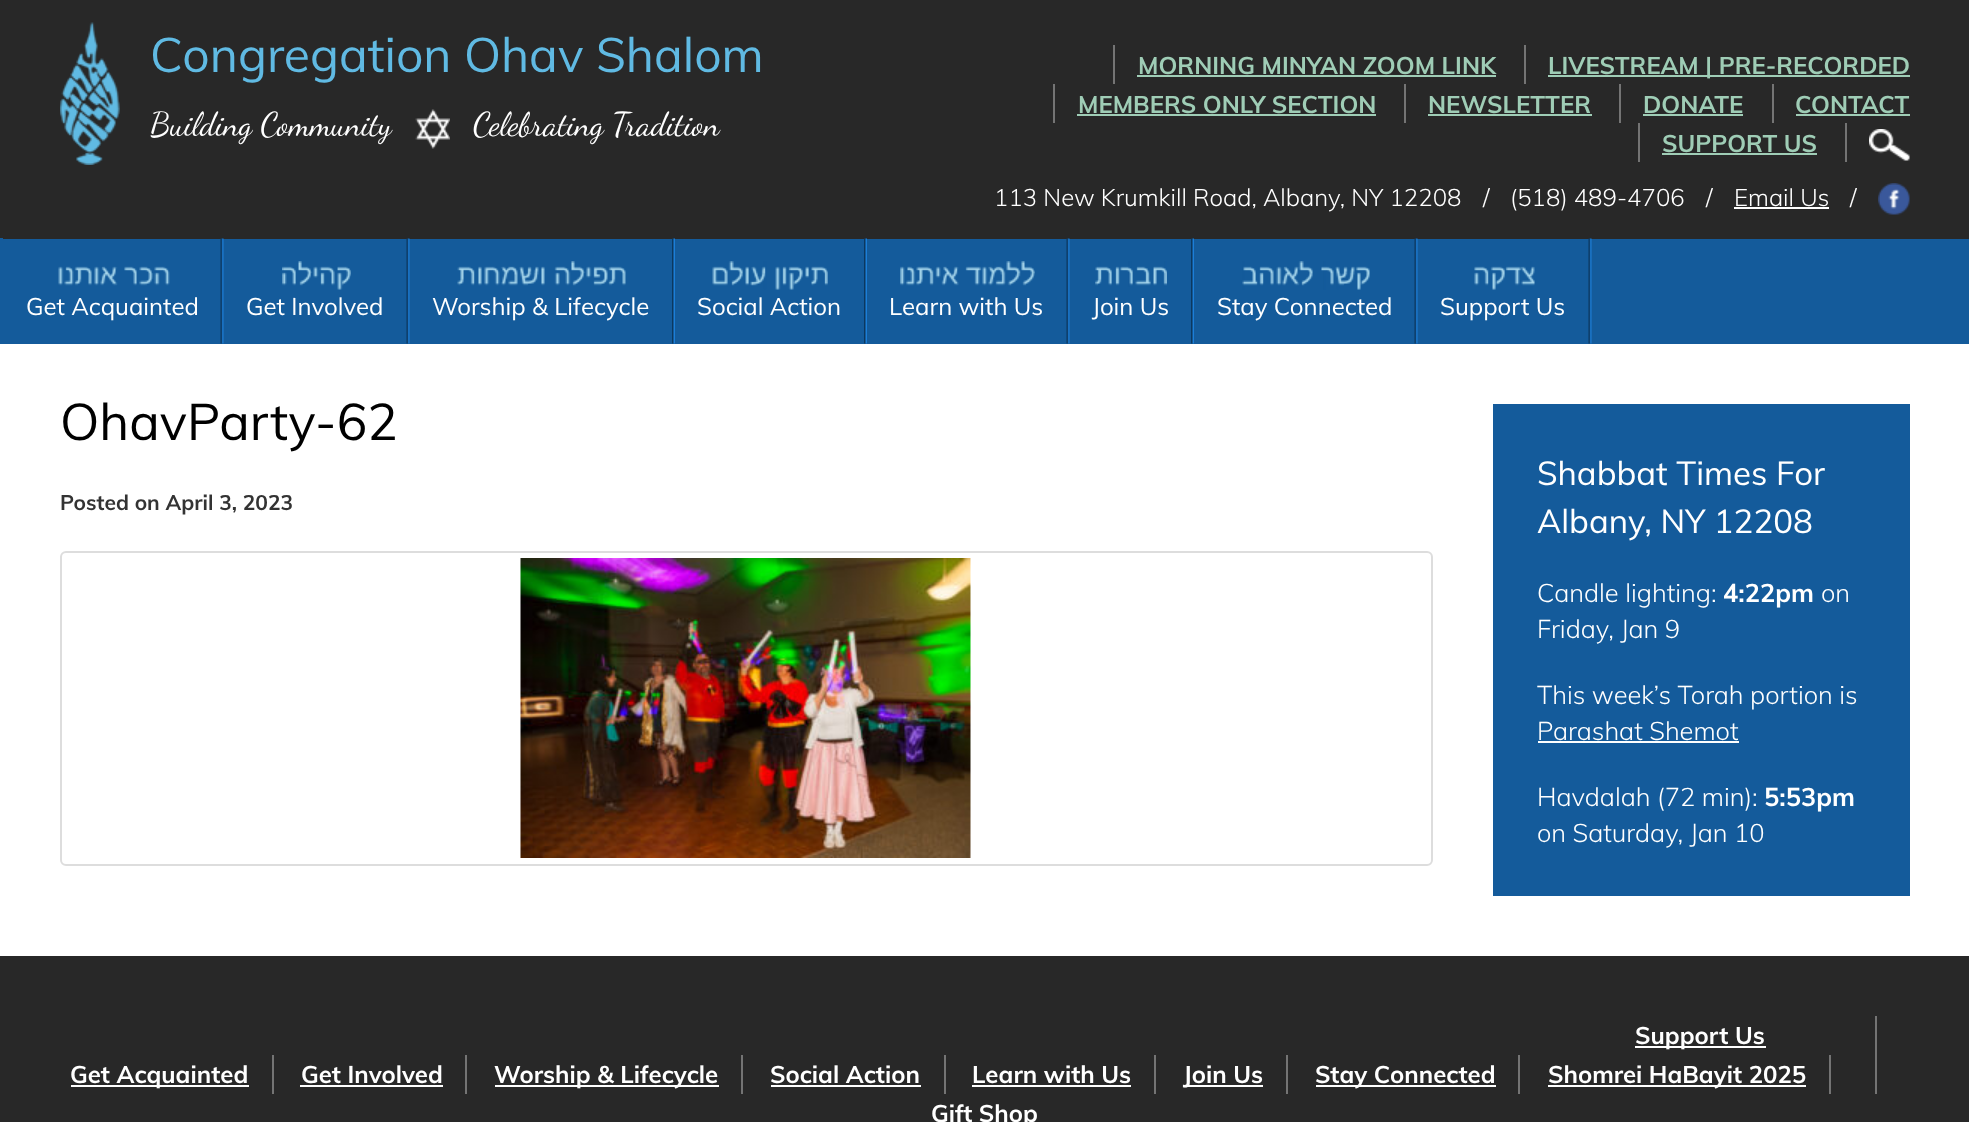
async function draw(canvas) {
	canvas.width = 1969;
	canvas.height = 1122;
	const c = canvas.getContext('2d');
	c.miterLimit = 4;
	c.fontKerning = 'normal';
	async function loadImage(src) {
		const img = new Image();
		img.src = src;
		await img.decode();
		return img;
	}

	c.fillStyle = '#282828';
	c.fillRect(0, 0, 1969, 1122);
	c.drawImage(await loadImage('img1.png'), 60, 22, 60, 143);
	c.font = '48px Muli';
	c.fillStyle = '#60bae3';
	c.fillText('Congregation Ohav Shalom', 150, 72);
	c.font = '33px Dancing Script';
	c.fillStyle = '#fff';
	c.fillText('Building Community', 150, 135);
	c.drawImage(await loadImage('img2.png'), 415, 109, 35, 40);
	c.fillText('Celebrating Tradition', 473, 135);
	c.fillStyle = '#747474';
	c.fillRect(1113, 45, 2, 39);
	c.font = 'bold 24px Muli';
	c.fillStyle = '#9fcdb6';
	c.fillText('MORNING MINYAN ZOOM LINK', 1138, 74);
	for (const [x, y, w, h, color] of [
		[1137, 75, 359, 2, '#9fcdb6'],
		[1524, 45, 2, 39, '#747474'],
		[1548, 75, 362, 2, '#9fcdb6'],
	]) {
		c.fillStyle = color;
		c.fillRect(x, y, w, h);
	}
	c.fillText('LIVESTREAM | PRE-RECORDED', 1548, 74);
	c.fillStyle = '#747474';
	c.fillRect(1053, 84, 2, 39);
	c.fillStyle = '#9fcdb6';
	c.fillText('MEMBERS ONLY SECTION', 1078, 113);
	c.fillRect(1077, 114, 299, 2);
	c.fillStyle = '#747474';
	c.fillRect(1404, 84, 2, 39);
	c.fillStyle = '#9fcdb6';
	c.fillText('NEWSLETTER', 1428, 113);
	c.fillRect(1428, 114, 164, 2);
	c.fillStyle = '#747474';
	c.fillRect(1619, 84, 2, 39);
	c.fillStyle = '#9fcdb6';
	c.fillText('DONATE', 1643, 113);
	c.fillRect(1643, 114, 100, 2);
	c.fillStyle = '#747474';
	c.fillRect(1772, 84, 2, 39);
	c.fillStyle = '#9fcdb6';
	c.fillText('CONTACT', 1795, 113);
	c.fillRect(1796, 114, 114, 2);
	c.fillStyle = '#747474';
	c.fillRect(1638, 123, 2, 39);
	c.fillStyle = '#9fcdb6';
	c.fillText('SUPPORT US', 1662, 152);
	c.fillRect(1662, 153, 155, 2);
	c.fillStyle = '#747474';
	c.fillRect(1845, 123, 2, 39);
	c.drawImage(await loadImage('img3.png'), 1869, 129, 41, 32);
	c.font = '300 24px Muli';
	c.fillStyle = '#fff';
	for (const [text, x, y] of [
		['113 New Krumkill Road, Albany, NY 12208', 994, 206],
		['/', 1483, 206],
		['(518) 489-4706', 1510, 206],
		['/', 1706, 206],
		['Email Us', 1734, 206],
	]) {
		c.fillText(text, x, y);
	}
	c.fillRect(1734, 207, 95, 2);
	c.fillText('/', 1850, 206);
	c.drawImage(await loadImage('img4.png'), 1878, 183, 32, 32);
	c.fillStyle = '#145b9b';
	c.fillRect(3, 239, 1966, 105);
	c.fillRect(0, 238, 3, 106);
	c.drawImage(await loadImage('img5.png'), 58, 238, 166, 106);
	c.font = '24px Muli';
	c.fillStyle = '#fff';
	c.fillText('Get Acquainted', 26, 315);
	c.drawImage(await loadImage('img6.png'), 282, 238, 128, 106);
	c.fillText('Get Involved', 246, 315);
	c.drawImage(await loadImage('img7.png'), 457, 238, 218, 106);
	c.fillText('Worship & Lifecycle', 432, 315);
	c.drawImage(await loadImage('img8.png'), 712, 238, 155, 106);
	c.fillText('Social Action', 697, 315);
	c.drawImage(await loadImage('img9.png'), 900, 238, 170, 106);
	c.fillText('Learn with Us', 889, 315);
	c.drawImage(await loadImage('img10.png'), 1095, 238, 99, 106);
	c.fillText('Join Us', 1092, 315);
	c.drawImage(await loadImage('img11.png'), 1242, 238, 176, 106);
	c.fillText('Stay Connected', 1217, 315);
	c.drawImage(await loadImage('img12.png'), 1474, 238, 118, 106);
	c.fillText('Support Us', 1440, 315);
	c.fillRect(0, 344, 1969, 612);
	c.font = '51px Muli';
	c.fillStyle = '#000';
	c.fillText('OhavParty-62', 60, 440);
	c.font = 'bold 21px Muli';
	c.fillStyle = '#333';
	c.fillText('Posted on April 3, 2023', 60, 510);
	c.beginPath();
	c.roundRect(61, 552, 1371, 313, 5);
	c.strokeStyle = '#ddd';
	c.lineWidth = 2;
	c.stroke();
	c.drawImage(await loadImage('img13.png'), 520, 558, 451, 300);
	c.fillStyle = '#145b9b';
	c.fillRect(1493, 404, 417, 492);
	c.font = '33px Muli';
	c.fillStyle = '#fff';
	c.fillText('Shabbat Times For', 1537, 485);
	c.fillText('Albany, NY 12208', 1537, 533);
	c.font = '300 25.5px Muli';
	c.fillText('Candle lighting:', 1537, 602);
	c.font = 'bold 25.5px Muli';
	c.fillText('4:22pm', 1723, 602);
	c.font = '300 25.5px Muli';
	for (const [text, x, y] of [
		['on', 1821, 602],
		['Friday, Jan 9', 1537, 638],
		['This week’s Torah portion is', 1537, 704],
		['Parashat Shemot', 1537, 740],
	]) {
		c.fillText(text, x, y);
	}
	c.fillRect(1538, 741, 201, 2);
	c.fillText('Havdalah (72 min):', 1537, 806);
	c.font = 'bold 25.5px Muli';
	c.fillText('5:53pm', 1764, 806);
	c.font = '300 25.5px Muli';
	c.fillText('on Saturday, Jan 10', 1537, 842);
	c.fillStyle = '#747474';
	c.fillRect(272, 1055, 2, 39);
	c.fillStyle = '#fff';
	c.fillRect(71, 1085, 178, 2);
	c.font = 'bold 24px Muli';
	c.fillText('Get Acquainted', 70, 1083);
	c.fillStyle = '#747474';
	c.fillRect(465, 1055, 2, 39);
	c.fillStyle = '#fff';
	c.fillText('Get Involved', 301, 1083);
	for (const [x, y, w, h, color] of [
		[300, 1085, 143, 2, '#fff'],
		[741, 1055, 2, 39, '#747474'],
		[495, 1085, 224, 2, '#fff'],
	]) {
		c.fillStyle = color;
		c.fillRect(x, y, w, h);
	}
	c.fillText('Worship & Lifecycle', 494, 1083);
	c.fillStyle = '#747474';
	c.fillRect(944, 1055, 2, 39);
	c.fillStyle = '#fff';
	c.fillText('Social Action', 770, 1083);
	c.fillRect(771, 1085, 150, 2);
	c.fillStyle = '#747474';
	c.fillRect(1154, 1055, 2, 39);
	c.fillStyle = '#fff';
	c.fillText('Learn with Us', 972, 1083);
	for (const [x, y, w, h, color] of [
		[972, 1085, 159, 2, '#fff'],
		[1286, 1055, 2, 39, '#747474'],
		[1184, 1085, 79, 2, '#fff'],
	]) {
		c.fillStyle = color;
		c.fillRect(x, y, w, h);
	}
	c.fillText('Join Us', 1183, 1083);
	c.fillStyle = '#747474';
	c.fillRect(1518, 1055, 2, 39);
	c.fillStyle = '#fff';
	c.fillRect(1316, 1085, 180, 2);
	c.fillText('Stay Connected', 1315, 1083);
	c.fillStyle = '#747474';
	c.fillRect(1875, 1016, 2, 78);
	c.fillStyle = '#fff';
	c.fillRect(1635, 1046, 131, 2);
	c.fillText('Support Us', 1635, 1044);
	c.fillStyle = '#747474';
	c.fillRect(1829, 1055, 2, 39);
	c.fillStyle = '#fff';
	c.fillRect(1548, 1085, 258, 2);
	c.fillText('Shomrei HaBayit 2025', 1548, 1083);
	c.fillText('Gift Shop', 931, 1122);
}

draw(document.querySelector('canvas'));
